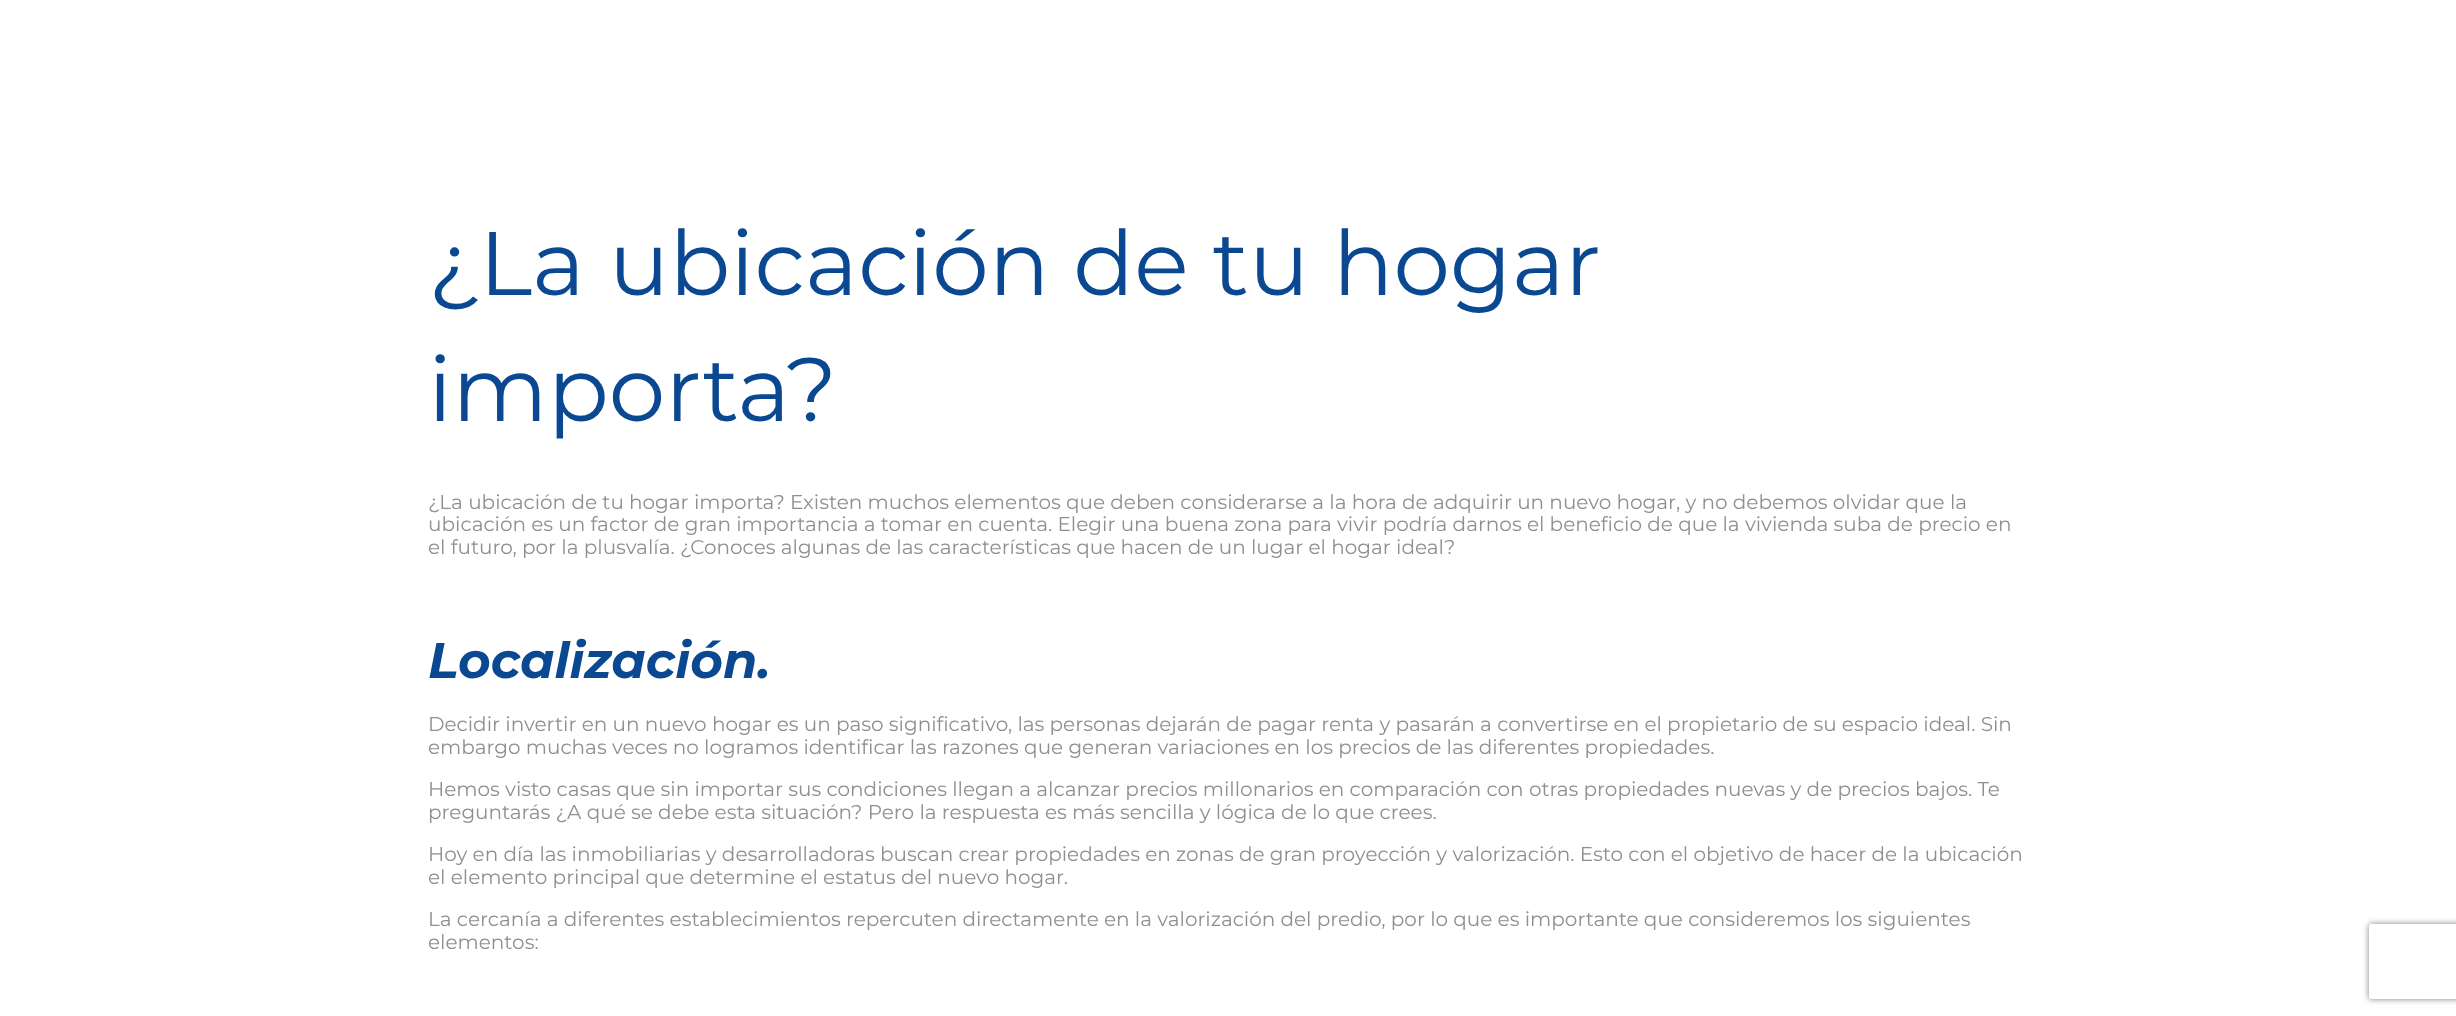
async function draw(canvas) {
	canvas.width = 2456;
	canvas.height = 1016;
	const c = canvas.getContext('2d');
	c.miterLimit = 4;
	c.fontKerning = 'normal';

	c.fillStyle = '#fff';
	c.fillRect(0, 0, 2456, 1016);
	c.font = '90px Montserrat';
	c.fillStyle = '#0a4891';
	c.fillText('¿La ubicación de tu hogar', 428, 295);
	c.fillText('importa?', 428, 421);
	c.font = '20px Montserrat';
	c.fillStyle = '#8f8f8f';
	for (const [text, x, y] of [
		['¿La ubicación de tu hogar importa? Existen muchos elementos que deben considerarse a la hora de adquirir un nuevo hogar, y no debemos olvidar que la', 428, 509],
		['ubicación es un factor de gran importancia a tomar en cuenta. Elegir una buena zona para vivir podría darnos el beneficio de que la vivienda suba de precio en', 428, 531],
		['el futuro, por la plusvalía. ¿Conoces algunas de las características que hacen de un lugar el hogar ideal?', 428, 554],
	]) {
		c.fillText(text, x, y);
	}
	c.font = 'italic bold 50px Montserrat';
	c.fillStyle = '#0a4891';
	c.fillText('Localización.', 428, 678);
	c.font = '20px Montserrat';
	c.fillStyle = '#8f8f8f';
	for (const [text, x, y] of [
		['Decidir invertir en un nuevo hogar es un paso significativo, las personas dejarán de pagar renta y pasarán a convertirse en el propietario de su espacio ideal. Sin', 428, 731],
		['embargo muchas veces no logramos identificar las razones que generan variaciones en los precios de las diferentes propiedades.', 428, 754],
		['Hemos visto casas que sin importar sus condiciones llegan a alcanzar precios millonarios en comparación con otras propiedades nuevas y de precios bajos. Te', 428, 796],
		['preguntarás ¿A qué se debe esta situación? Pero la respuesta es más sencilla y lógica de lo que crees.', 428, 819],
		['Hoy en día las inmobiliarias y desarrolladoras buscan crear propiedades en zonas de gran proyección y valorización. Esto con el objetivo de hacer de la ubicación', 428, 861],
		['el elemento principal que determine el estatus del nuevo hogar.', 428, 884],
		['La cercanía a diferentes establecimientos repercuten directamente en la valorización del predio, por lo que es importante que consideremos los siguientes', 428, 926],
		['elementos:', 428, 949],
	]) {
		c.fillText(text, x, y);
	}
	c.save();
	c.beginPath();
	c.moveTo(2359, 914);
	c.lineTo(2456, 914);
	c.lineTo(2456, 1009);
	c.lineTo(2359, 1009);
	c.closePath();
	c.moveTo(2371.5, 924);
	c.lineTo(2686.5, 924);
	c.bezierCurveTo(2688, 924, 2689, 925, 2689, 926.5);
	c.lineTo(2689, 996.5);
	c.bezierCurveTo(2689, 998, 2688, 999, 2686.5, 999);
	c.lineTo(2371.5, 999);
	c.bezierCurveTo(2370, 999, 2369, 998, 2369, 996.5);
	c.lineTo(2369, 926.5);
	c.bezierCurveTo(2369, 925, 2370, 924, 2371.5, 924);
	c.closePath();
	c.clip('evenodd');
	c.fillStyle = '#808080';
	c.filter = 'blur(3px)';
	c.beginPath();
	c.roundRect(2369, 924, 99, 75, 2.5);
	c.fill();
	c.filter = 'none';
	c.restore();
}

draw(document.querySelector('canvas'));
